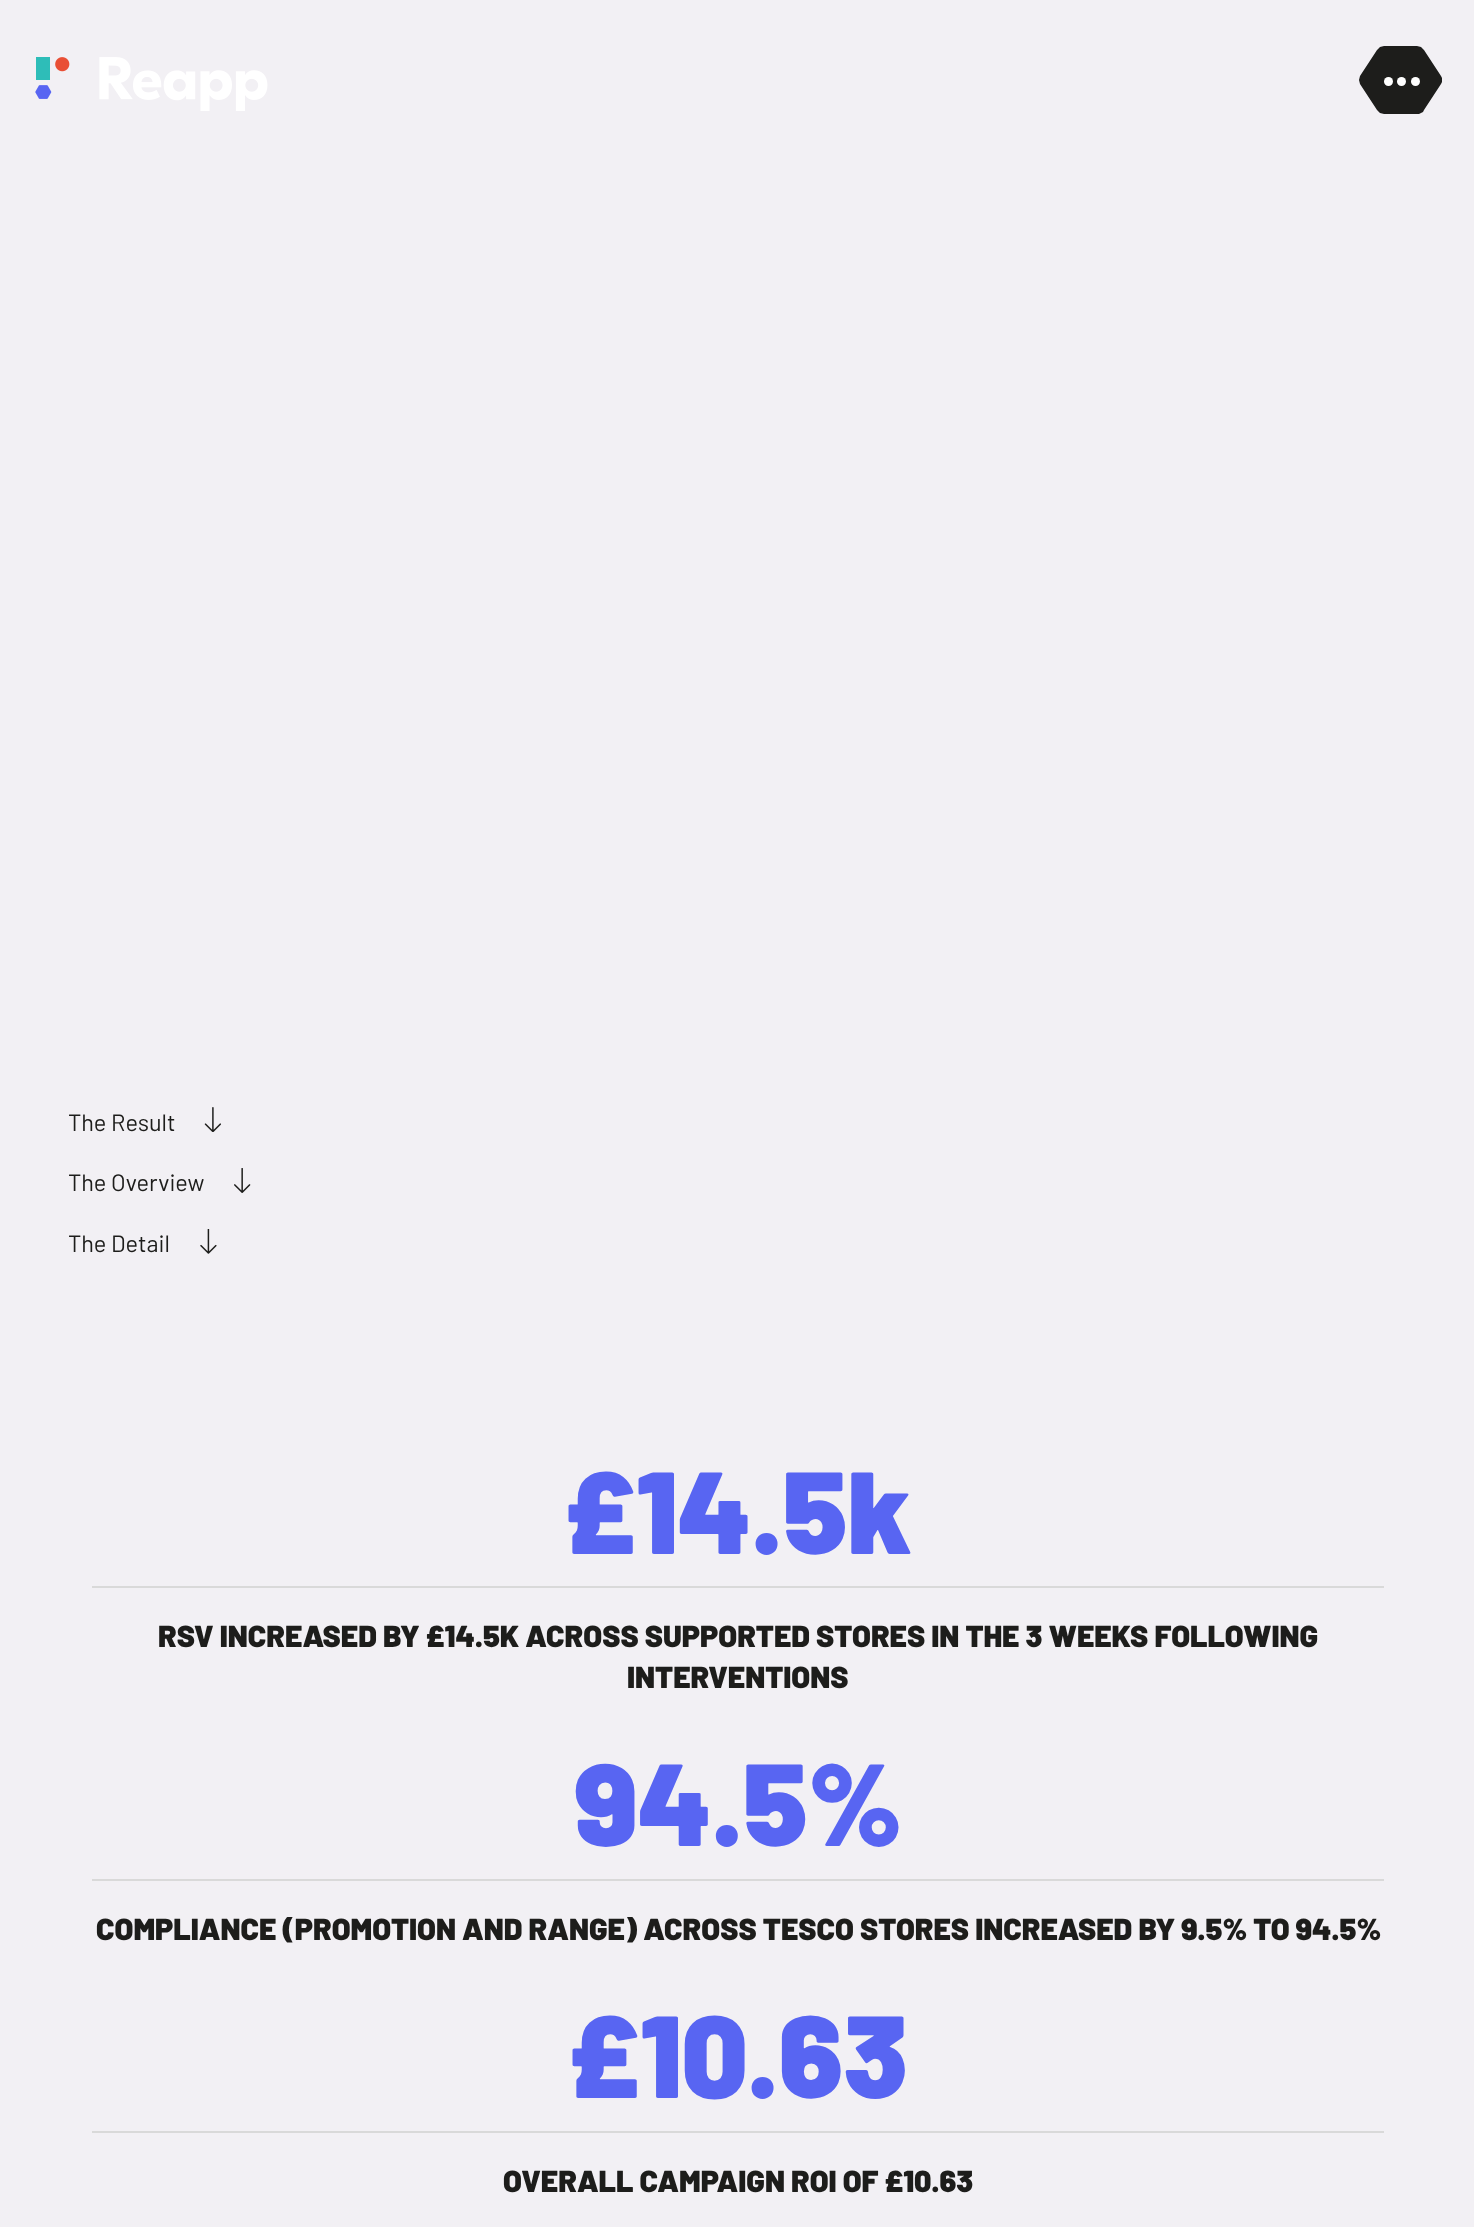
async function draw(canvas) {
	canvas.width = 1474;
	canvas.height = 2227;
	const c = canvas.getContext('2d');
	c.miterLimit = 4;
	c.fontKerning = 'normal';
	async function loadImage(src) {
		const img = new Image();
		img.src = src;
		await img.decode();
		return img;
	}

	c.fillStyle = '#f2f0f4';
	c.fillRect(0, 0, 1474, 2227);
	c.drawImage(await loadImage('img1.png'), 35, 57, 35, 42);
	c.drawImage(await loadImage('img2.png'), 99, 57, 169, 54);
	c.fillStyle = '#1d1d1b';
	c.beginPath();
	c.moveTo(1441, 76);
	c.lineTo(1442, 78);
	c.lineTo(1442, 82);
	c.lineTo(1441, 84);
	c.lineTo(1424, 110);
	c.lineTo(1423, 112);
	c.lineTo(1419, 114);
	c.lineTo(1384, 114);
	c.lineTo(1380, 113);
	c.lineTo(1377, 110);
	c.lineTo(1360, 84);
	c.lineTo(1359, 80);
	c.lineTo(1360, 76);
	c.lineTo(1377, 50);
	c.lineTo(1380, 47);
	c.lineTo(1384, 46);
	c.lineTo(1417, 46);
	c.lineTo(1421, 47);
	c.lineTo(1424, 50);
	c.closePath();
	c.fill();
	c.fillStyle = '#fff';
	c.beginPath();
	c.arc(1388.5, 81.5, 4.5, 0, 2 * Math.PI);
	c.fill();
	c.beginPath();
	c.arc(1401.5, 81.5, 4.5, 0, 2 * Math.PI);
	c.fill();
	c.beginPath();
	c.arc(1415.5, 81.5, 4.5, 0, 2 * Math.PI);
	c.fill();
	c.font = '23.5px Barlow';
	c.fillStyle = '#1d1d1b';
	c.fillText('The Result', 68, 1131);
	c.drawImage(await loadImage('img3.png'), 204, 1107, 17, 25);
	c.fillText('The Overview', 68, 1191);
	c.drawImage(await loadImage('img4.png'), 234, 1168, 17, 25);
	c.fillText('The Detail', 68, 1252);
	c.drawImage(await loadImage('img5.png'), 200, 1229, 17, 25);
	c.font = '900 116.5px Barlow';
	c.fillStyle = '#5865f2';
	c.fillText('£14.5k', 564, 1554);
	c.fillStyle = '#d9d9d9';
	c.fillRect(92, 1586, 1292, 2);
	c.font = '900 30.4px Barlow';
	c.fillStyle = '#1d1d1b';
	c.fillText('RSV INCREASED BY £14.5K ACROSS SUPPORTED STORES IN THE 3 WEEKS FOLLOWING', 158, 1647);
	c.fillText('INTERVENTIONS', 627, 1688);
	c.font = '900 116.5px Barlow';
	c.fillStyle = '#5865f2';
	c.fillText('94.5%', 575, 1846);
	c.fillStyle = '#d9d9d9';
	c.fillRect(92, 1879, 1292, 2);
	c.font = '900 30.4px Barlow';
	c.fillStyle = '#1d1d1b';
	c.fillText('COMPLIANCE (PROMOTION AND RANGE) ACROSS TESCO STORES INCREASED BY 9.5% TO 94.5%', 96, 1940);
	c.font = '900 116.5px Barlow';
	c.fillStyle = '#5865f2';
	c.fillText('£10.63', 568, 2098);
	c.fillStyle = '#d9d9d9';
	c.fillRect(92, 2131, 1292, 2);
	c.font = '900 30.4px Barlow';
	c.fillStyle = '#1d1d1b';
	c.fillText('OVERALL CAMPAIGN ROI OF £10.63', 503, 2192);
}

draw(document.querySelector('canvas'));
